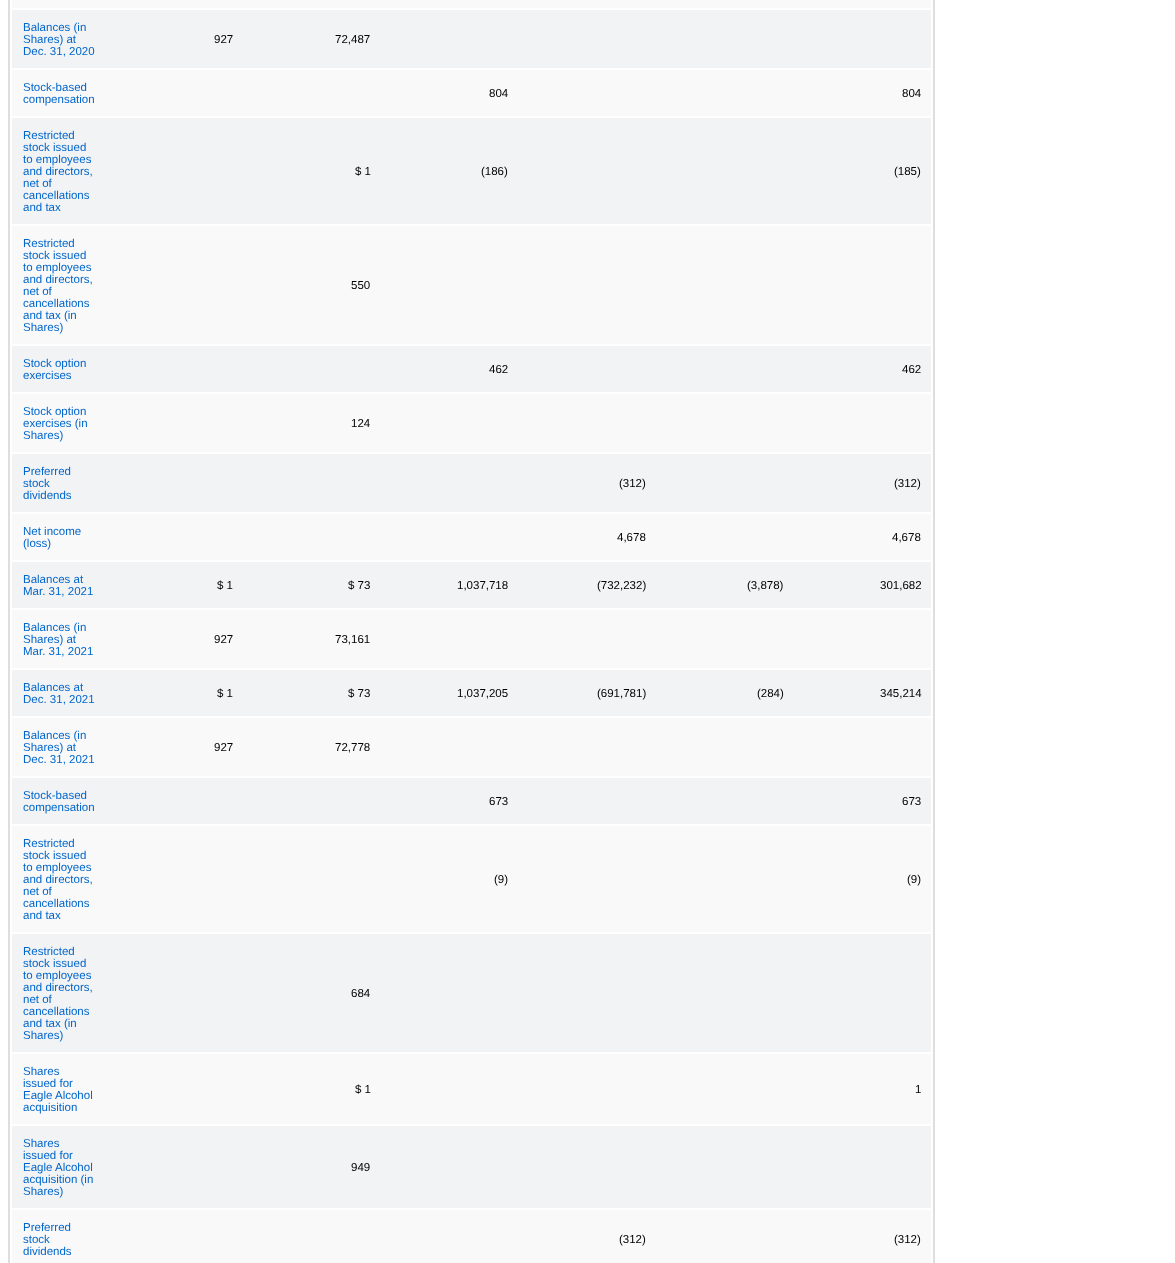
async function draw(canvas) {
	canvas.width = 1175;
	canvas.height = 1263;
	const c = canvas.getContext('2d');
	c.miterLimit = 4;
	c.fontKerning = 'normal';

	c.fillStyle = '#fff';
	c.fillRect(0, 0, 1175, 1263);
	c.strokeStyle = '#dedede';
	c.lineWidth = 2;
	c.strokeRect(9, -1, 925, 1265);
	c.fillStyle = '#f9f9f9';
	c.fillRect(12, 0, 919, 8);
	c.fillStyle = '#f2f3f4';
	c.fillRect(12, 10, 919, 58);
	c.font = '11.5px Liberation Sans';
	c.fillStyle = '#06c';
	for (const [text, x, y] of [
		['Balances (in', 23, 31],
		['Shares) at', 23, 43],
		['Dec. 31, 2020', 23, 55],
	]) {
		c.fillText(text, x, y);
	}
	c.fillStyle = '#000';
	c.fillText('927', 214, 43);
	c.fillText('72,487', 335, 43);
	c.fillStyle = '#f9f9f9';
	c.fillRect(12, 70, 919, 46);
	c.fillStyle = '#06c';
	c.fillText('Stock-based', 23, 91);
	c.fillText('compensation', 23, 103);
	c.fillStyle = '#000';
	c.fillText('804', 489, 97);
	c.fillText('804', 902, 97);
	c.fillStyle = '#f2f3f4';
	c.fillRect(12, 118, 919, 106);
	c.fillStyle = '#06c';
	for (const [text, x, y] of [
		['Restricted', 23, 139],
		['stock issued', 23, 151],
		['to employees', 23, 163],
		['and directors,', 23, 175],
		['net of', 23, 187],
		['cancellations', 23, 199],
		['and tax', 23, 211],
	]) {
		c.fillText(text, x, y);
	}
	c.fillStyle = '#000';
	for (const [text, x, y] of [
		['$ 1', 355, 175],
		['(186)', 481, 175],
		['(185)', 894, 175],
	]) {
		c.fillText(text, x, y);
	}
	c.fillStyle = '#f9f9f9';
	c.fillRect(12, 226, 919, 118);
	c.fillStyle = '#06c';
	for (const [text, x, y] of [
		['Restricted', 23, 247],
		['stock issued', 23, 259],
		['to employees', 23, 271],
		['and directors,', 23, 283],
		['net of', 23, 295],
		['cancellations', 23, 307],
		['and tax (in', 23, 319],
		['Shares)', 23, 331],
	]) {
		c.fillText(text, x, y);
	}
	c.fillStyle = '#000';
	c.fillText('550', 351, 289);
	c.fillStyle = '#f2f3f4';
	c.fillRect(12, 346, 919, 46);
	c.fillStyle = '#06c';
	c.fillText('Stock option', 23, 367);
	c.fillText('exercises', 23, 379);
	c.fillStyle = '#000';
	c.fillText('462', 489, 373);
	c.fillText('462', 902, 373);
	c.fillStyle = '#f9f9f9';
	c.fillRect(12, 394, 919, 58);
	c.fillStyle = '#06c';
	for (const [text, x, y] of [
		['Stock option', 23, 415],
		['exercises (in', 23, 427],
		['Shares)', 23, 439],
	]) {
		c.fillText(text, x, y);
	}
	c.fillStyle = '#000';
	c.fillText('124', 351, 427);
	c.fillStyle = '#f2f3f4';
	c.fillRect(12, 454, 919, 58);
	c.fillStyle = '#06c';
	for (const [text, x, y] of [
		['Preferred', 23, 475],
		['stock', 23, 487],
		['dividends', 23, 499],
	]) {
		c.fillText(text, x, y);
	}
	c.fillStyle = '#000';
	c.fillText('(312)', 619, 487);
	c.fillText('(312)', 894, 487);
	c.fillStyle = '#f9f9f9';
	c.fillRect(12, 514, 919, 46);
	c.fillStyle = '#06c';
	c.fillText('Net income', 23, 535);
	c.fillText('(loss)', 23, 547);
	c.fillStyle = '#000';
	c.fillText('4,678', 617, 541);
	c.fillText('4,678', 892, 541);
	c.fillStyle = '#f2f3f4';
	c.fillRect(12, 562, 919, 46);
	c.fillStyle = '#06c';
	c.fillText('Balances at', 23, 583);
	c.fillText('Mar. 31, 2021', 23, 595);
	c.fillStyle = '#000';
	for (const [text, x, y] of [
		['$ 1', 217, 589],
		['$ 73', 348, 589],
		['1,037,718', 457, 589],
		['(732,232)', 597, 589],
		['(3,878)', 747, 589],
		['301,682', 880, 589],
	]) {
		c.fillText(text, x, y);
	}
	c.fillStyle = '#f9f9f9';
	c.fillRect(12, 610, 919, 58);
	c.fillStyle = '#06c';
	for (const [text, x, y] of [
		['Balances (in', 23, 631],
		['Shares) at', 23, 643],
		['Mar. 31, 2021', 23, 655],
	]) {
		c.fillText(text, x, y);
	}
	c.fillStyle = '#000';
	c.fillText('927', 214, 643);
	c.fillText('73,161', 335, 643);
	c.fillStyle = '#f2f3f4';
	c.fillRect(12, 670, 919, 46);
	c.fillStyle = '#06c';
	c.fillText('Balances at', 23, 691);
	c.fillText('Dec. 31, 2021', 23, 703);
	c.fillStyle = '#000';
	for (const [text, x, y] of [
		['$ 1', 217, 697],
		['$ 73', 348, 697],
		['1,037,205', 457, 697],
		['(691,781)', 597, 697],
		['(284)', 757, 697],
		['345,214', 880, 697],
	]) {
		c.fillText(text, x, y);
	}
	c.fillStyle = '#f9f9f9';
	c.fillRect(12, 718, 919, 58);
	c.fillStyle = '#06c';
	for (const [text, x, y] of [
		['Balances (in', 23, 739],
		['Shares) at', 23, 751],
		['Dec. 31, 2021', 23, 763],
	]) {
		c.fillText(text, x, y);
	}
	c.fillStyle = '#000';
	c.fillText('927', 214, 751);
	c.fillText('72,778', 335, 751);
	c.fillStyle = '#f2f3f4';
	c.fillRect(12, 778, 919, 46);
	c.fillStyle = '#06c';
	c.fillText('Stock-based', 23, 799);
	c.fillText('compensation', 23, 811);
	c.fillStyle = '#000';
	c.fillText('673', 489, 805);
	c.fillText('673', 902, 805);
	c.fillStyle = '#f9f9f9';
	c.fillRect(12, 826, 919, 106);
	c.fillStyle = '#06c';
	for (const [text, x, y] of [
		['Restricted', 23, 847],
		['stock issued', 23, 859],
		['to employees', 23, 871],
		['and directors,', 23, 883],
		['net of', 23, 895],
		['cancellations', 23, 907],
		['and tax', 23, 919],
	]) {
		c.fillText(text, x, y);
	}
	c.fillStyle = '#000';
	c.fillText('(9)', 494, 883);
	c.fillText('(9)', 907, 883);
	c.fillStyle = '#f2f3f4';
	c.fillRect(12, 934, 919, 118);
	c.fillStyle = '#06c';
	for (const [text, x, y] of [
		['Restricted', 23, 955],
		['stock issued', 23, 967],
		['to employees', 23, 979],
		['and directors,', 23, 991],
		['net of', 23, 1003],
		['cancellations', 23, 1015],
		['and tax (in', 23, 1027],
		['Shares)', 23, 1039],
	]) {
		c.fillText(text, x, y);
	}
	c.fillStyle = '#000';
	c.fillText('684', 351, 997);
	c.fillStyle = '#f9f9f9';
	c.fillRect(12, 1054, 919, 70);
	c.fillStyle = '#06c';
	for (const [text, x, y] of [
		['Shares', 23, 1075],
		['issued for', 23, 1087],
		['Eagle Alcohol', 23, 1099],
		['acquisition', 23, 1111],
	]) {
		c.fillText(text, x, y);
	}
	c.fillStyle = '#000';
	c.fillText('$ 1', 355, 1093);
	c.fillText('1', 915, 1093);
	c.fillStyle = '#f2f3f4';
	c.fillRect(12, 1126, 919, 82);
	c.fillStyle = '#06c';
	for (const [text, x, y] of [
		['Shares', 23, 1147],
		['issued for', 23, 1159],
		['Eagle Alcohol', 23, 1171],
		['acquisition (in', 23, 1183],
		['Shares)', 23, 1195],
	]) {
		c.fillText(text, x, y);
	}
	c.fillStyle = '#000';
	c.fillText('949', 351, 1171);
	c.fillStyle = '#f9f9f9';
	c.fillRect(12, 1210, 919, 53);
	c.fillStyle = '#06c';
	for (const [text, x, y] of [
		['Preferred', 23, 1231],
		['stock', 23, 1243],
		['dividends', 23, 1255],
	]) {
		c.fillText(text, x, y);
	}
	c.fillStyle = '#000';
	c.fillText('(312)', 619, 1243);
	c.fillText('(312)', 894, 1243);
}

draw(document.querySelector('canvas'));
